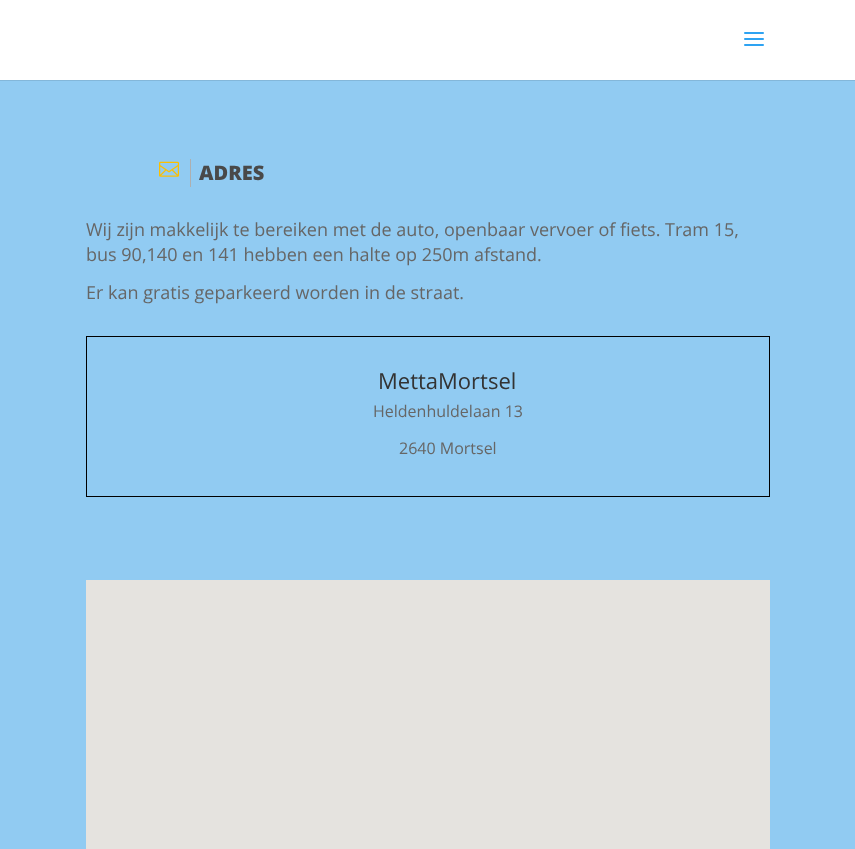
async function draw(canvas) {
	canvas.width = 855;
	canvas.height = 849;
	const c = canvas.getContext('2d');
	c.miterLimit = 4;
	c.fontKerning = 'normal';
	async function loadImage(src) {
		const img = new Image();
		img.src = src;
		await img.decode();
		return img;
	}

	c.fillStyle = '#91cbf2';
	c.fillRect(0, 0, 855, 849);
	c.fillStyle = '#83b7da';
	c.fillRect(0, 80, 855, 1);
	c.fillStyle = '#fff';
	c.fillRect(0, 0, 855, 80);
	c.drawImage(await loadImage('img1.png'), 744, 32, 20, 14);
	c.drawImage(await loadImage('img2.png'), 159, 161, 20, 16);
	c.fillStyle = '#aeafaf';
	c.fillRect(190, 159, 1, 28);
	c.font = '800 20px Open Sans';
	c.fillStyle = '#494949';
	c.fillText('ADRES', 199, 180);
	c.font = '18px Open Sans';
	c.fillStyle = '#666';
	for (const [text, x, y] of [
		['Wij zijn makkelijk te bereiken met de auto, openbaar vervoer of fiets. Tram 15,', 86, 236],
		['bus 90,140 en 141 hebben een halte op 250m afstand.', 86, 261],
		['Er kan gratis geparkeerd worden in de straat.', 86, 299],
	]) {
		c.fillText(text, x, y);
	}
	c.strokeStyle = '#000';
	c.strokeRect(86.5, 336.5, 683, 160);
	c.font = '22px Open Sans';
	c.fillStyle = '#333';
	c.fillText('MettaMortsel', 378, 389);
	c.font = '16px Open Sans';
	c.fillStyle = '#666';
	c.fillText('Heldenhuldelaan 13', 373, 417);
	c.fillText('2640 Mortsel', 399, 454);
	c.fillStyle = '#e5e3df';
	c.fillRect(86, 580, 684, 269);
}

draw(document.querySelector('canvas'));
